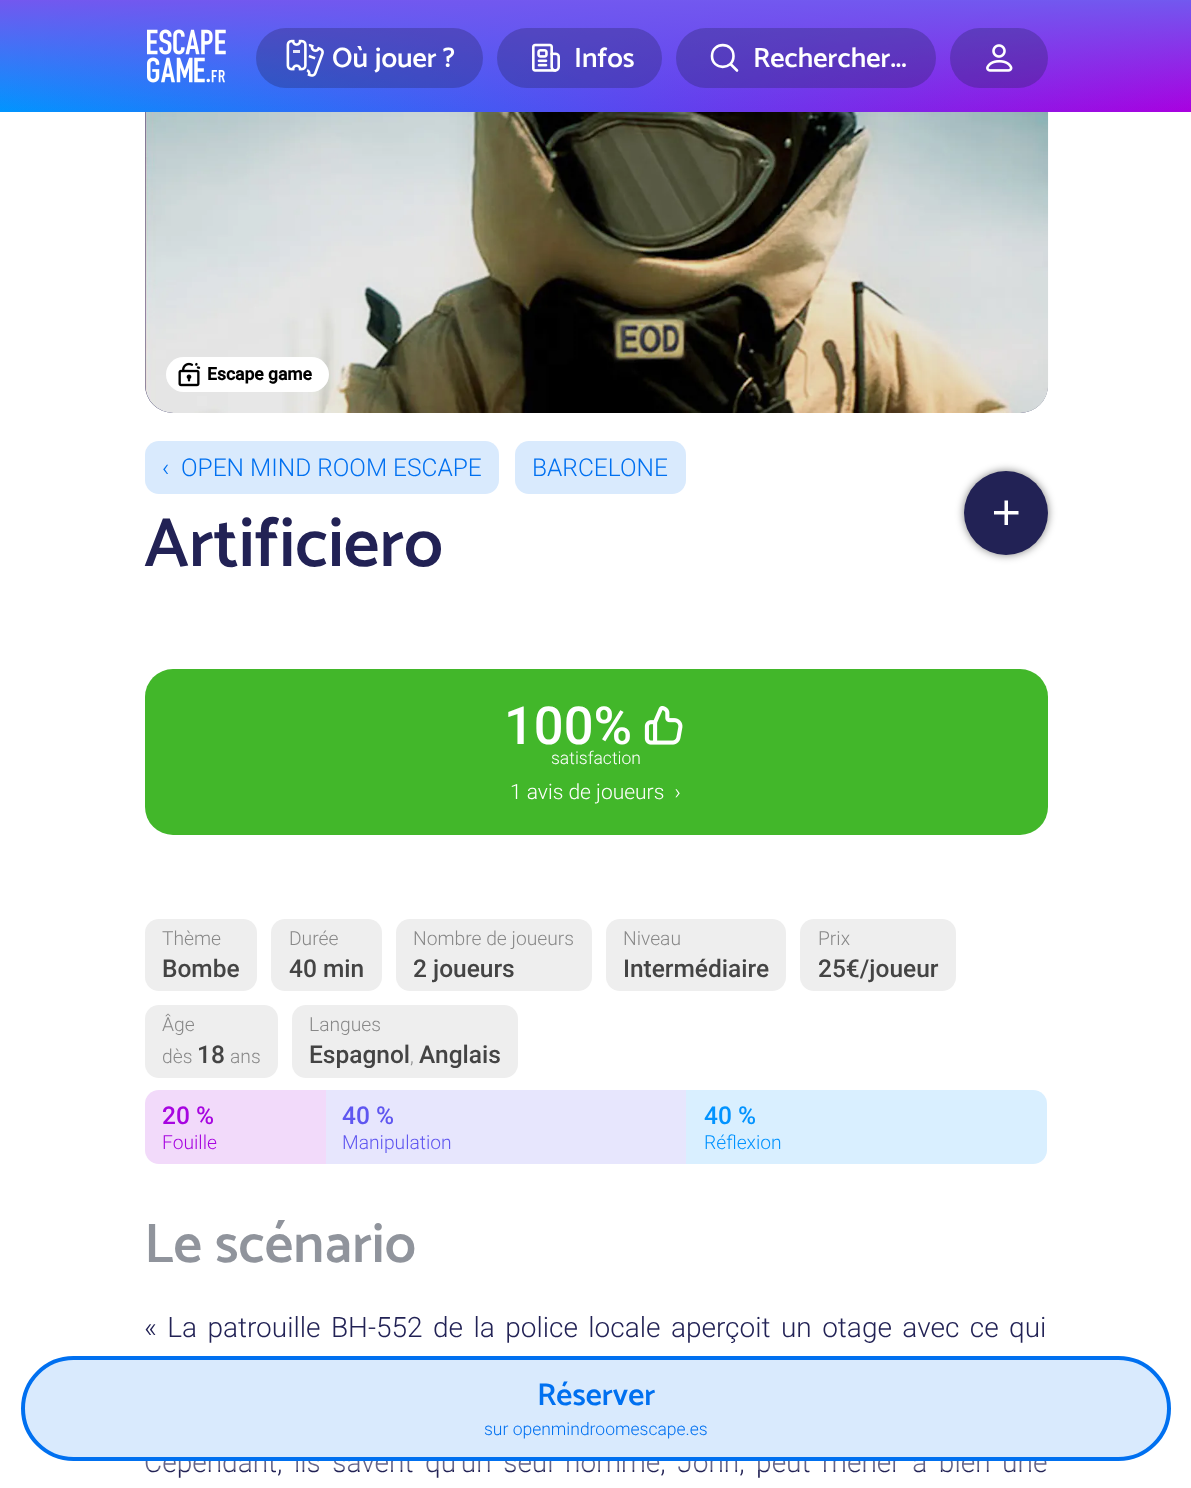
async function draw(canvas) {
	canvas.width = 1191;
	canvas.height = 1488;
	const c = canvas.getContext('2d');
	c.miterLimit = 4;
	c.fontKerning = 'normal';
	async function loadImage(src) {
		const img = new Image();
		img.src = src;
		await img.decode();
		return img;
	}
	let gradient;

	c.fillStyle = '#fff';
	c.fillRect(0, 0, 1191, 1488);
	gradient = c.createLinearGradient(0, 56, 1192, 56);
	gradient.addColorStop(0, '#0095ff');
	gradient.addColorStop(1, '#a900e0');
	c.fillStyle = gradient;
	c.fillRect(0, 1, 1191, 111);
	gradient = c.createLinearGradient(596, 0, 596, 112);
	gradient.addColorStop(0, '#7258ef');
	gradient.addColorStop(1, '#7258ef00');
	c.fillStyle = gradient;
	c.fillRect(0, 0, 1191, 110);
	c.drawImage(await loadImage('img1.png'), 147, 29, 79, 54);
	c.fillStyle = '#2222554d';
	c.beginPath();
	c.roundRect(256, 28, 227, 60, 30);
	c.fill();
	c.drawImage(await loadImage('img2.png'), 286, 39, 38, 38);
	c.font = '100 28px Catamaran';
	c.fillStyle = '#fff';
	c.fillText('Où jouer ?', 332, 67);
	c.fillStyle = '#2222554d';
	c.beginPath();
	c.roundRect(497, 28, 165, 60, 30);
	c.fill();
	c.drawImage(await loadImage('img3.png'), 532, 43, 28, 29);
	c.fillStyle = '#fff';
	c.fillText('Infos', 574, 67);
	c.fillStyle = '#2222554d';
	c.beginPath();
	c.roundRect(676, 28, 260, 60, 30);
	c.fill();
	c.beginPath();
	c.moveTo(737, 70.5);
	c.lineTo(730.5, 64);
	c.moveTo(712, 56);
	c.bezierCurveTo(712, 41.5, 733.5, 41.5, 733.5, 56);
	c.bezierCurveTo(733.5, 70.5, 712, 70.5, 712, 56);
	c.closePath();
	c.strokeStyle = '#fff';
	c.lineWidth = 2.6;
	c.lineCap = 'round';
	c.lineJoin = 'round';
	c.stroke();
	c.fillStyle = '#fff';
	c.fillText('Rechercher...', 753, 67);
	c.fillStyle = '#2222554d';
	c.beginPath();
	c.roundRect(950, 28, 98, 60, 30);
	c.fill();
	c.drawImage(await loadImage('img4.png'), 986, 44, 27, 28);
	c.fillStyle = '#225';
	c.beginPath();
	c.roundRect(145, 112, 903, 301, [0, 0, 28, 28]);
	c.fill();
	c.drawImage(await loadImage('img5.png'), 145, 112, 904, 301);
	c.fillStyle = '#fff';
	c.beginPath();
	c.roundRect(166, 357, 163, 35, 17.5);
	c.fill();
	c.drawImage(await loadImage('img6.png'), 178, 362, 23, 25);
	c.font = 'bold 17.5px Roboto';
	c.fillStyle = '#000';
	c.fillText('Escape game', 207, 380);
	c.fillStyle = '#d9eafd';
	c.beginPath();
	c.roundRect(145, 441, 354, 53, 14);
	c.fill();
	c.font = '300 24.5px Roboto';
	c.fillStyle = '#0070f0';
	c.fillText('‹', 162, 476);
	c.fillText('OPEN MIND ROOM ESCAPE', 181, 476);
	c.fillStyle = '#d9eafd';
	c.beginPath();
	c.roundRect(515, 441, 171, 53, 14);
	c.fill();
	c.fillStyle = '#0070f0';
	c.fillText('BARCELONE', 532, 476);
	c.font = '100 70px Catamaran';
	c.fillStyle = '#225';
	c.fillText('Artificiero', 144, 566);
	c.fillStyle = '#00000080';
	c.filter = 'blur(4.5px)';
	c.beginPath();
	c.roundRect(964, 471, 84, 84, 42);
	c.fill();
	c.filter = 'none';
	c.fillStyle = '#225';
	c.beginPath();
	c.arc(1006, 513, 42, 0, 2 * Math.PI);
	c.fill();
	c.drawImage(await loadImage('img7.png'), 994, 500, 25, 25);
	c.fillStyle = '#42b72a';
	c.beginPath();
	c.roundRect(145, 669, 903, 166, 28);
	c.fill();
	c.font = '500 52.5px Roboto';
	c.fillStyle = '#fff';
	c.fillText('100%', 504, 744);
	c.drawImage(await loadImage('img8.png'), 644, 706, 39, 39);
	c.font = '300 17.5px Roboto';
	c.fillText('satisfaction', 551, 764);
	c.font = '300 21px Roboto';
	c.fillText('1 avis de joueurs  ›', 510, 799);
	c.fillStyle = '#eee';
	c.beginPath();
	c.roundRect(145, 919, 112, 72, 14);
	c.fill();
	c.font = '300 19.25px Roboto';
	c.fillStyle = '#888';
	c.fillText('Thème', 162, 945);
	c.font = '500 24.5px Roboto';
	c.fillStyle = '#444';
	c.fillText('Bombe', 162, 977);
	c.fillStyle = '#eee';
	c.beginPath();
	c.roundRect(271, 919, 111, 72, 14);
	c.fill();
	c.font = '300 19.25px Roboto';
	c.fillStyle = '#888';
	c.fillText('Durée', 289, 945);
	c.font = '500 24.5px Roboto';
	c.fillStyle = '#444';
	c.fillText('40 min', 289, 977);
	c.fillStyle = '#eee';
	c.beginPath();
	c.roundRect(396, 919, 196, 72, 14);
	c.fill();
	c.font = '300 19.25px Roboto';
	c.fillStyle = '#888';
	c.fillText('Nombre de joueurs', 413, 945);
	c.font = '500 24.5px Roboto';
	c.fillStyle = '#444';
	c.fillText('2 joueurs', 413, 977);
	c.fillStyle = '#eee';
	c.beginPath();
	c.roundRect(606, 919, 180, 72, 14);
	c.fill();
	c.font = '300 19.25px Roboto';
	c.fillStyle = '#888';
	c.fillText('Niveau', 623, 945);
	c.font = '500 24.5px Roboto';
	c.fillStyle = '#444';
	c.fillText('Intermédiaire', 623, 977);
	c.fillStyle = '#eee';
	c.beginPath();
	c.roundRect(800, 919, 156, 72, 14);
	c.fill();
	c.font = '300 19.25px Roboto';
	c.fillStyle = '#888';
	c.fillText('Prix', 818, 945);
	c.font = '500 24.5px Roboto';
	c.fillStyle = '#444';
	c.fillText('25€/joueur', 818, 977);
	c.fillStyle = '#eee';
	c.beginPath();
	c.roundRect(145, 1005, 133, 73, 14);
	c.fill();
	c.font = '300 19.25px Roboto';
	c.fillStyle = '#888';
	c.fillText('Âge', 162, 1031);
	c.fillText('dès', 162, 1063);
	c.font = '500 24.5px Roboto';
	c.fillStyle = '#444';
	c.fillText('18', 197, 1063);
	c.font = '300 19.25px Roboto';
	c.fillStyle = '#888';
	c.fillText('ans', 230, 1063);
	c.fillStyle = '#eee';
	c.beginPath();
	c.roundRect(292, 1005, 226, 73, 14);
	c.fill();
	c.fillStyle = '#888';
	c.fillText('Langues', 309, 1031);
	c.font = '500 24.5px Roboto';
	c.fillStyle = '#444';
	c.fillText('Espagnol', 309, 1063);
	c.font = '300 19.25px Roboto';
	c.fillStyle = '#888';
	c.fillText(',', 410, 1063);
	c.font = '500 24.5px Roboto';
	c.fillStyle = '#444';
	c.fillText('Anglais', 419, 1063);
	c.fillStyle = '#f2dafa';
	c.beginPath();
	c.roundRect(145, 1090, 181, 74, [14, 0, 0, 14]);
	c.fill();
	c.fillStyle = '#a705e0';
	c.fillText('20 %', 162, 1124);
	c.font = '300 19.25px Roboto';
	c.fillText('Fouille', 162, 1149);
	c.fillStyle = '#e7e6fd';
	c.fillRect(326, 1090, 360, 74);
	c.font = '500 24.5px Roboto';
	c.fillStyle = '#5f56f0';
	c.fillText('40 %', 342, 1124);
	c.font = '300 19.25px Roboto';
	c.fillText('Manipulation', 342, 1149);
	c.fillStyle = '#d9efff';
	c.beginPath();
	c.roundRect(686, 1090, 361, 74, [0, 14, 14, 0]);
	c.fill();
	c.font = '500 24.5px Roboto';
	c.fillStyle = '#0293ff';
	c.fillText('40 %', 704, 1124);
	c.font = '300 19.25px Roboto';
	c.fillText('Réflexion', 704, 1149);
	c.font = '100 56px Catamaran';
	c.fillStyle = '#90949c';
	c.fillText('Le scénario', 144, 1262);
	c.wordSpacing = '3.6px';
	c.font = '300 28px Roboto';
	c.fillStyle = '#225';
	c.fillText('« La patrouille BH-552 de la police locale aperçoit un otage avec ce qui', 144, 1337);
	c.wordSpacing = '4.75px';
	c.fillText('Cependant, ils savent qu\'un seul homme, John, peut mener à bien une', 144, 1472);
	c.fillStyle = '#ffffff4d';
	c.fillRect(146, 1451, 901, 19);
	c.fillStyle = '#fff';
	c.beginPath();
	c.roundRect(23, 1358, 1146, 102, 51);
	c.fill();
	c.fillStyle = '#0070f026';
	c.beginPath();
	c.roundRect(23, 1358, 1146, 101, 50.5);
	c.fill();
	c.strokeStyle = '#0070f0';
	c.lineWidth = 4;
	c.lineJoin = 'miter';
	c.stroke();
	c.wordSpacing = '0px';
	c.font = '100 31.5px Catamaran';
	c.fillStyle = '#0070f0';
	c.fillText('Réserver', 537, 1405);
	c.font = '300 17.5px Roboto';
	c.fillText('sur openmindroomescape.es', 484, 1435);
}

draw(document.querySelector('canvas'));
